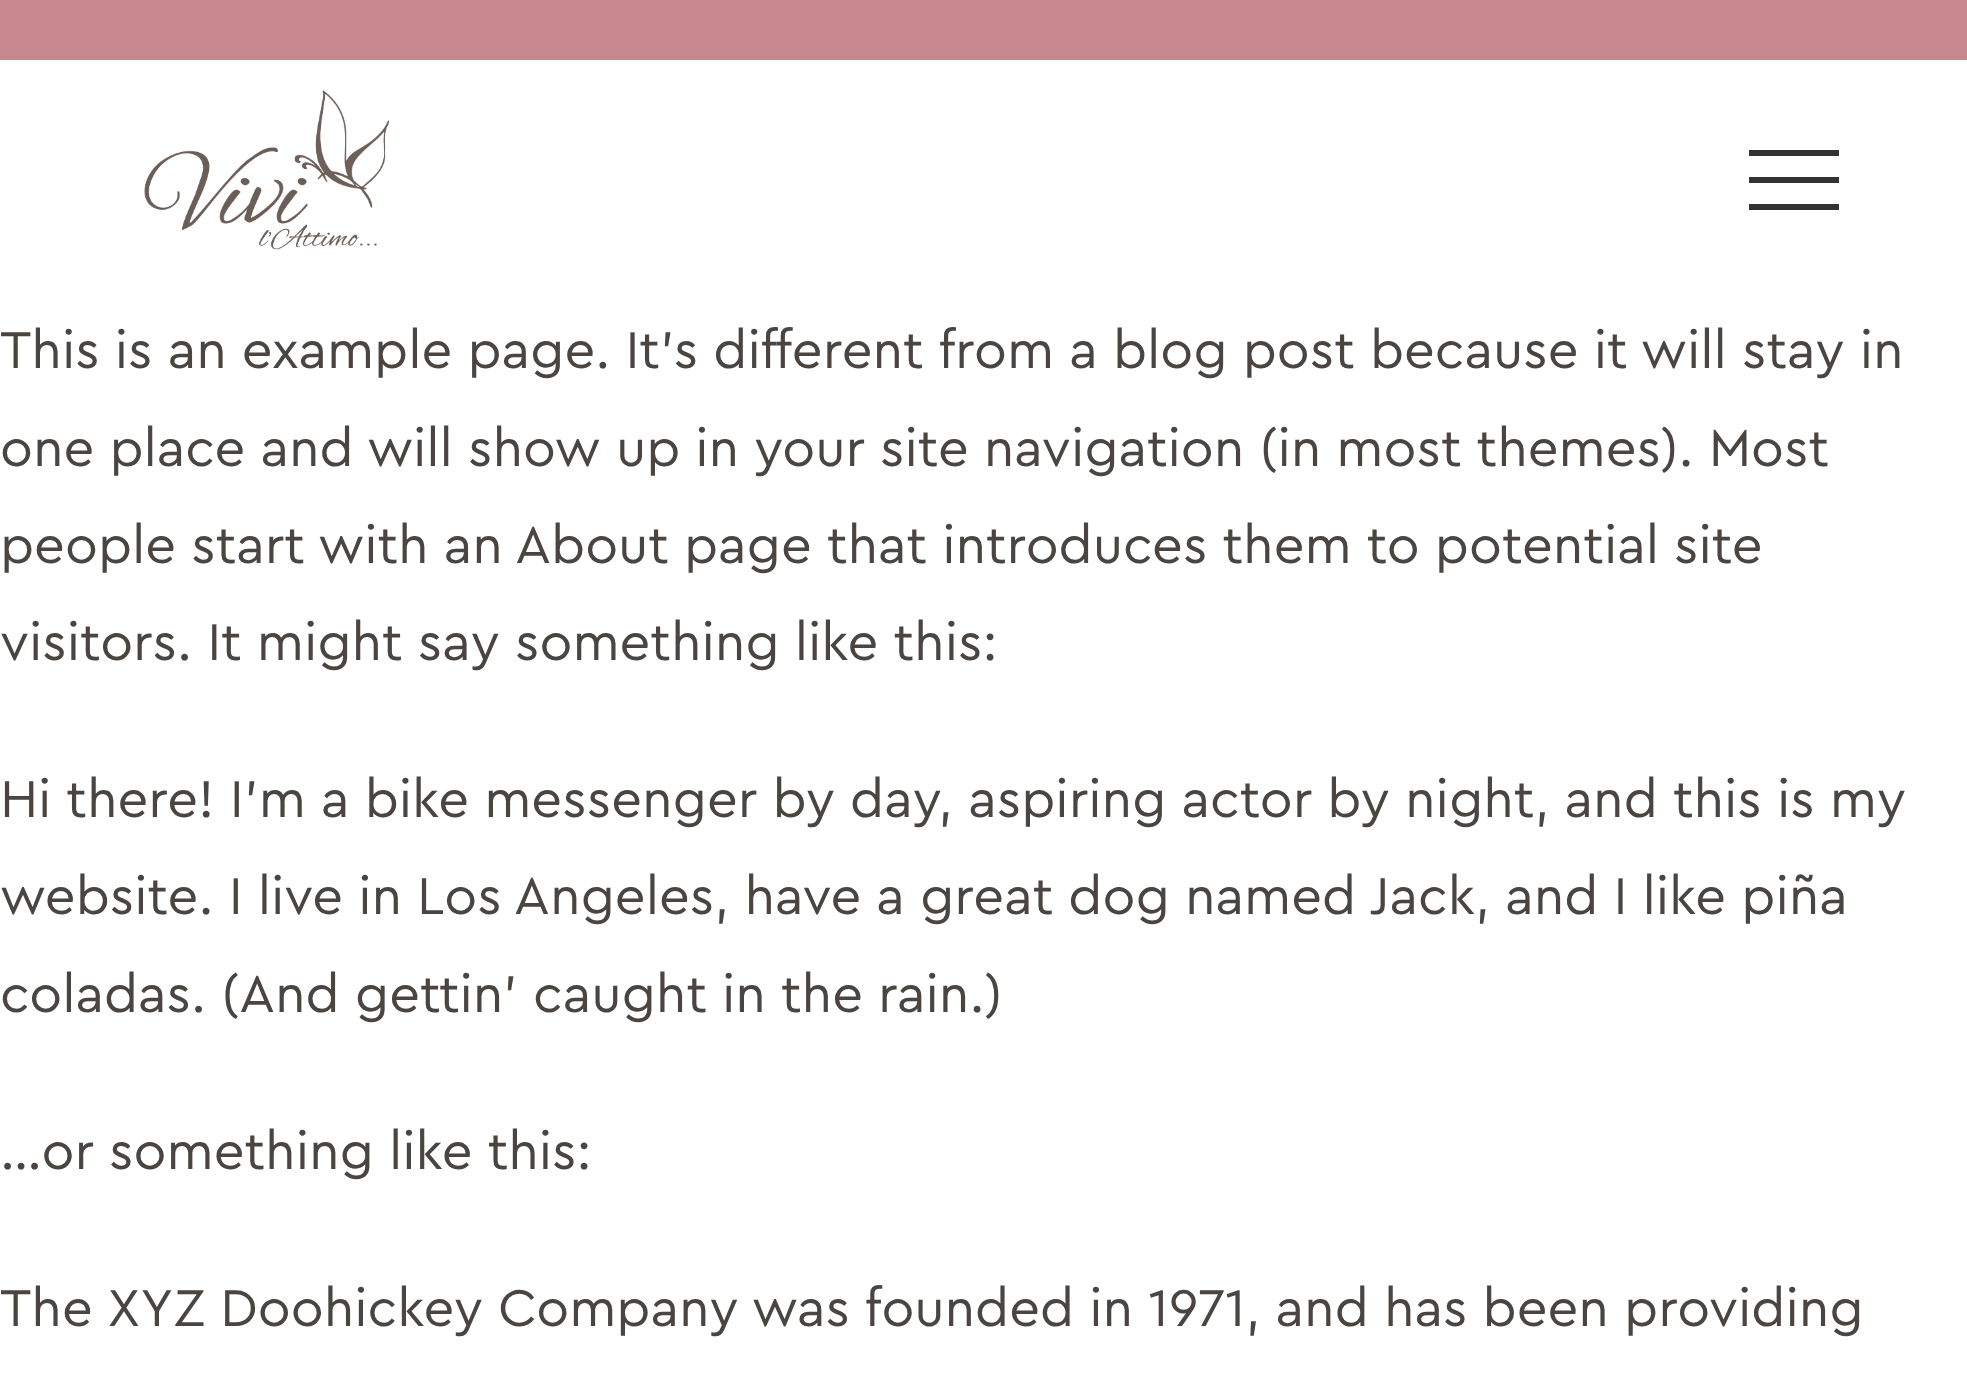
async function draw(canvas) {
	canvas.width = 1967;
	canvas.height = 1392;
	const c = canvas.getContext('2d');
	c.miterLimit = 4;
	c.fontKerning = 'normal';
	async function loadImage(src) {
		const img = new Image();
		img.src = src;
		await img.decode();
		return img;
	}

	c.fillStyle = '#fff';
	c.fillRect(0, 0, 1967, 1392);
	c.fillStyle = '#c7878f';
	c.fillRect(0, 0, 1967, 60);
	c.drawImage(await loadImage('img1.png'), 144, 90, 246, 160);
	for (const [x, y, w, h, color] of [
		[1749, 150, 90, 6, '#333'],
		[1749, 177, 90, 6, '#333'],
		[1749, 204, 90, 6, '#333'],
	]) {
		c.fillStyle = color;
		c.fillRect(x, y, w, h);
	}
	c.font = '54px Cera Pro';
	c.fillStyle = '#4a4541';
	for (const [text, x, y] of [
		['This is an example page. It’s different from a blog post because it will stay in', 0, 368],
		['one place and will show up in your site navigation (in most themes). Most', 0, 466],
		['people start with an About page that introduces them to potential site', 0, 563],
		['visitors. It might say something like this:', 0, 660],
		['Hi there! I’m a bike messenger by day, aspiring actor by night, and this is my', 0, 817],
		['website. I live in Los Angeles, have a great dog named Jack, and I like piña', 0, 914],
		['coladas. (And gettin’ caught in the rain.)', 0, 1012],
		['…or something like this:', 0, 1169],
		['The XYZ Doohickey Company was founded in 1971, and has been providing', 0, 1326],
	]) {
		c.fillText(text, x, y);
	}
}

draw(document.querySelector('canvas'));
